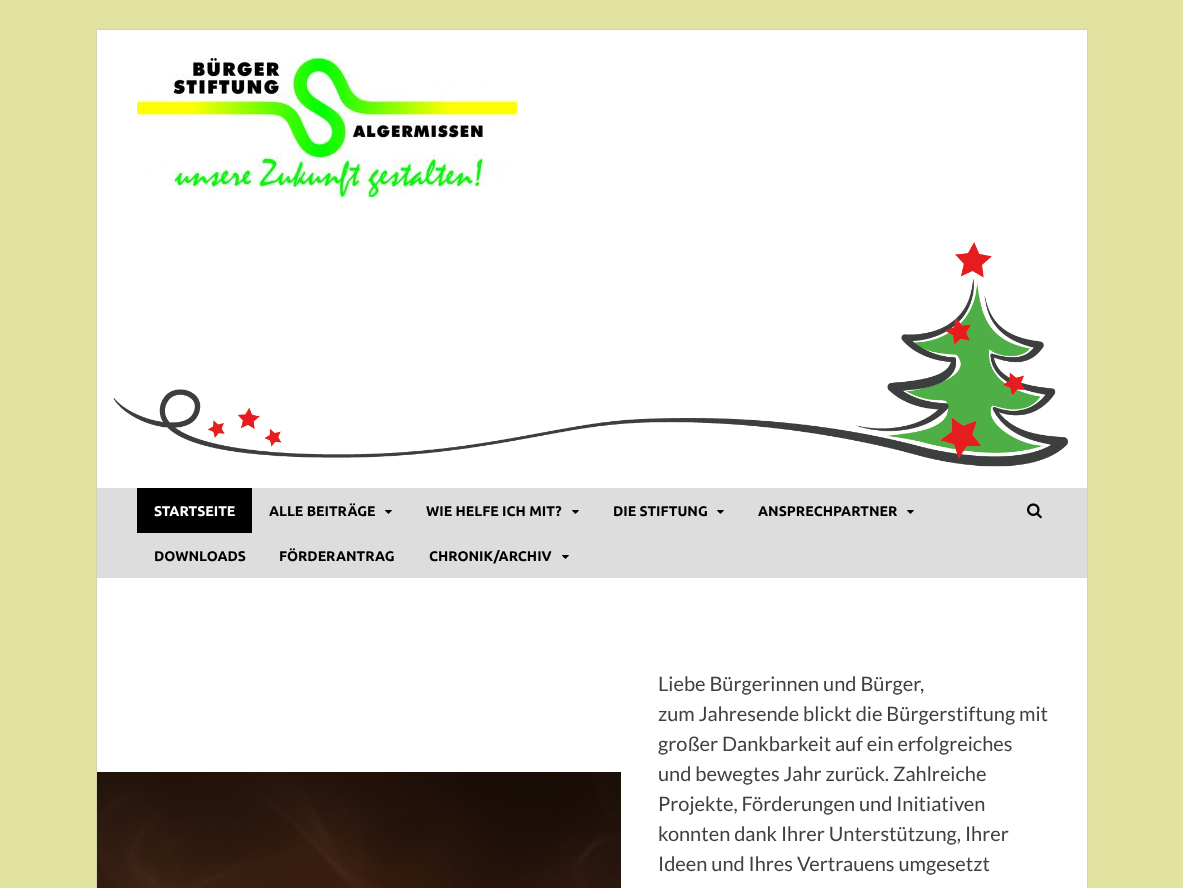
async function draw(canvas) {
	canvas.width = 1183;
	canvas.height = 888;
	const c = canvas.getContext('2d');
	c.miterLimit = 4;
	c.fontKerning = 'normal';
	async function loadImage(src) {
		const img = new Image();
		img.src = src;
		await img.decode();
		return img;
	}

	c.fillStyle = '#e2e2a1';
	c.fillRect(0, 0, 1183, 888);
	c.fillStyle = '#bbb';
	c.filter = 'blur(1px)';
	c.beginPath();
	c.rect(97, 30, 990, 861);
	c.fill();
	c.filter = 'none';
	c.fillStyle = '#fff';
	c.fillRect(97, 30, 990, 858);
	c.drawImage(await loadImage('img1.png'), 137, 58, 380, 139);
	c.drawImage(await loadImage('img2.png'), 113, 242, 955, 225);
	c.fillStyle = '#ddd';
	c.fillRect(97, 488, 990, 90);
	c.fillStyle = '#000';
	c.fillRect(137, 488, 115, 45);
	c.font = 'bold 14px Ubuntu';
	c.fillStyle = '#fff';
	c.fillText('STARTSEITE', 154, 516);
	c.fillStyle = '#000';
	c.fillText('ALLE BEITRÄGE', 269, 516);
	c.drawImage(await loadImage('img3.png'), 385, 510, 7, 4);
	c.fillText('WIE HELFE ICH MIT?', 426, 516);
	c.drawImage(await loadImage('img3.png'), 572, 510, 7, 4);
	c.fillText('DIE STIFTUNG', 613, 516);
	c.drawImage(await loadImage('img3.png'), 717, 510, 7, 4);
	c.fillText('ANSPRECHPARTNER', 758, 516);
	c.drawImage(await loadImage('img3.png'), 907, 510, 7, 4);
	for (const [text, x, y] of [
		['DOWNLOADS', 154, 561],
		['FÖRDERANTRAG', 279, 561],
		['CHRONIK/ARCHIV', 429, 561],
	]) {
		c.fillText(text, x, y);
	}
	c.drawImage(await loadImage('img3.png'), 562, 555, 7, 4);
	c.drawImage(await loadImage('img4.png'), 1027, 503, 15, 16);
	c.drawImage(await loadImage('img5.png'), 97, 772, 524, 116);
	c.font = '20px Lato';
	c.fillStyle = '#404040';
	for (const [text, x, y] of [
		['Liebe Bürgerinnen und Bürger,', 658, 691],
		['zum Jahresende blickt die Bürgerstiftung mit', 658, 721],
		['großer Dankbarkeit auf ein erfolgreiches', 658, 751],
		['und bewegtes Jahr zurück. Zahlreiche', 658, 781],
		['Projekte, Förderungen und Initiativen', 658, 811],
		['konnten dank Ihrer Unterstützung, Ihrer', 658, 841],
		['Ideen und Ihres Vertrauens umgesetzt', 658, 871],
	]) {
		c.fillText(text, x, y);
	}
}

draw(document.querySelector('canvas'));
